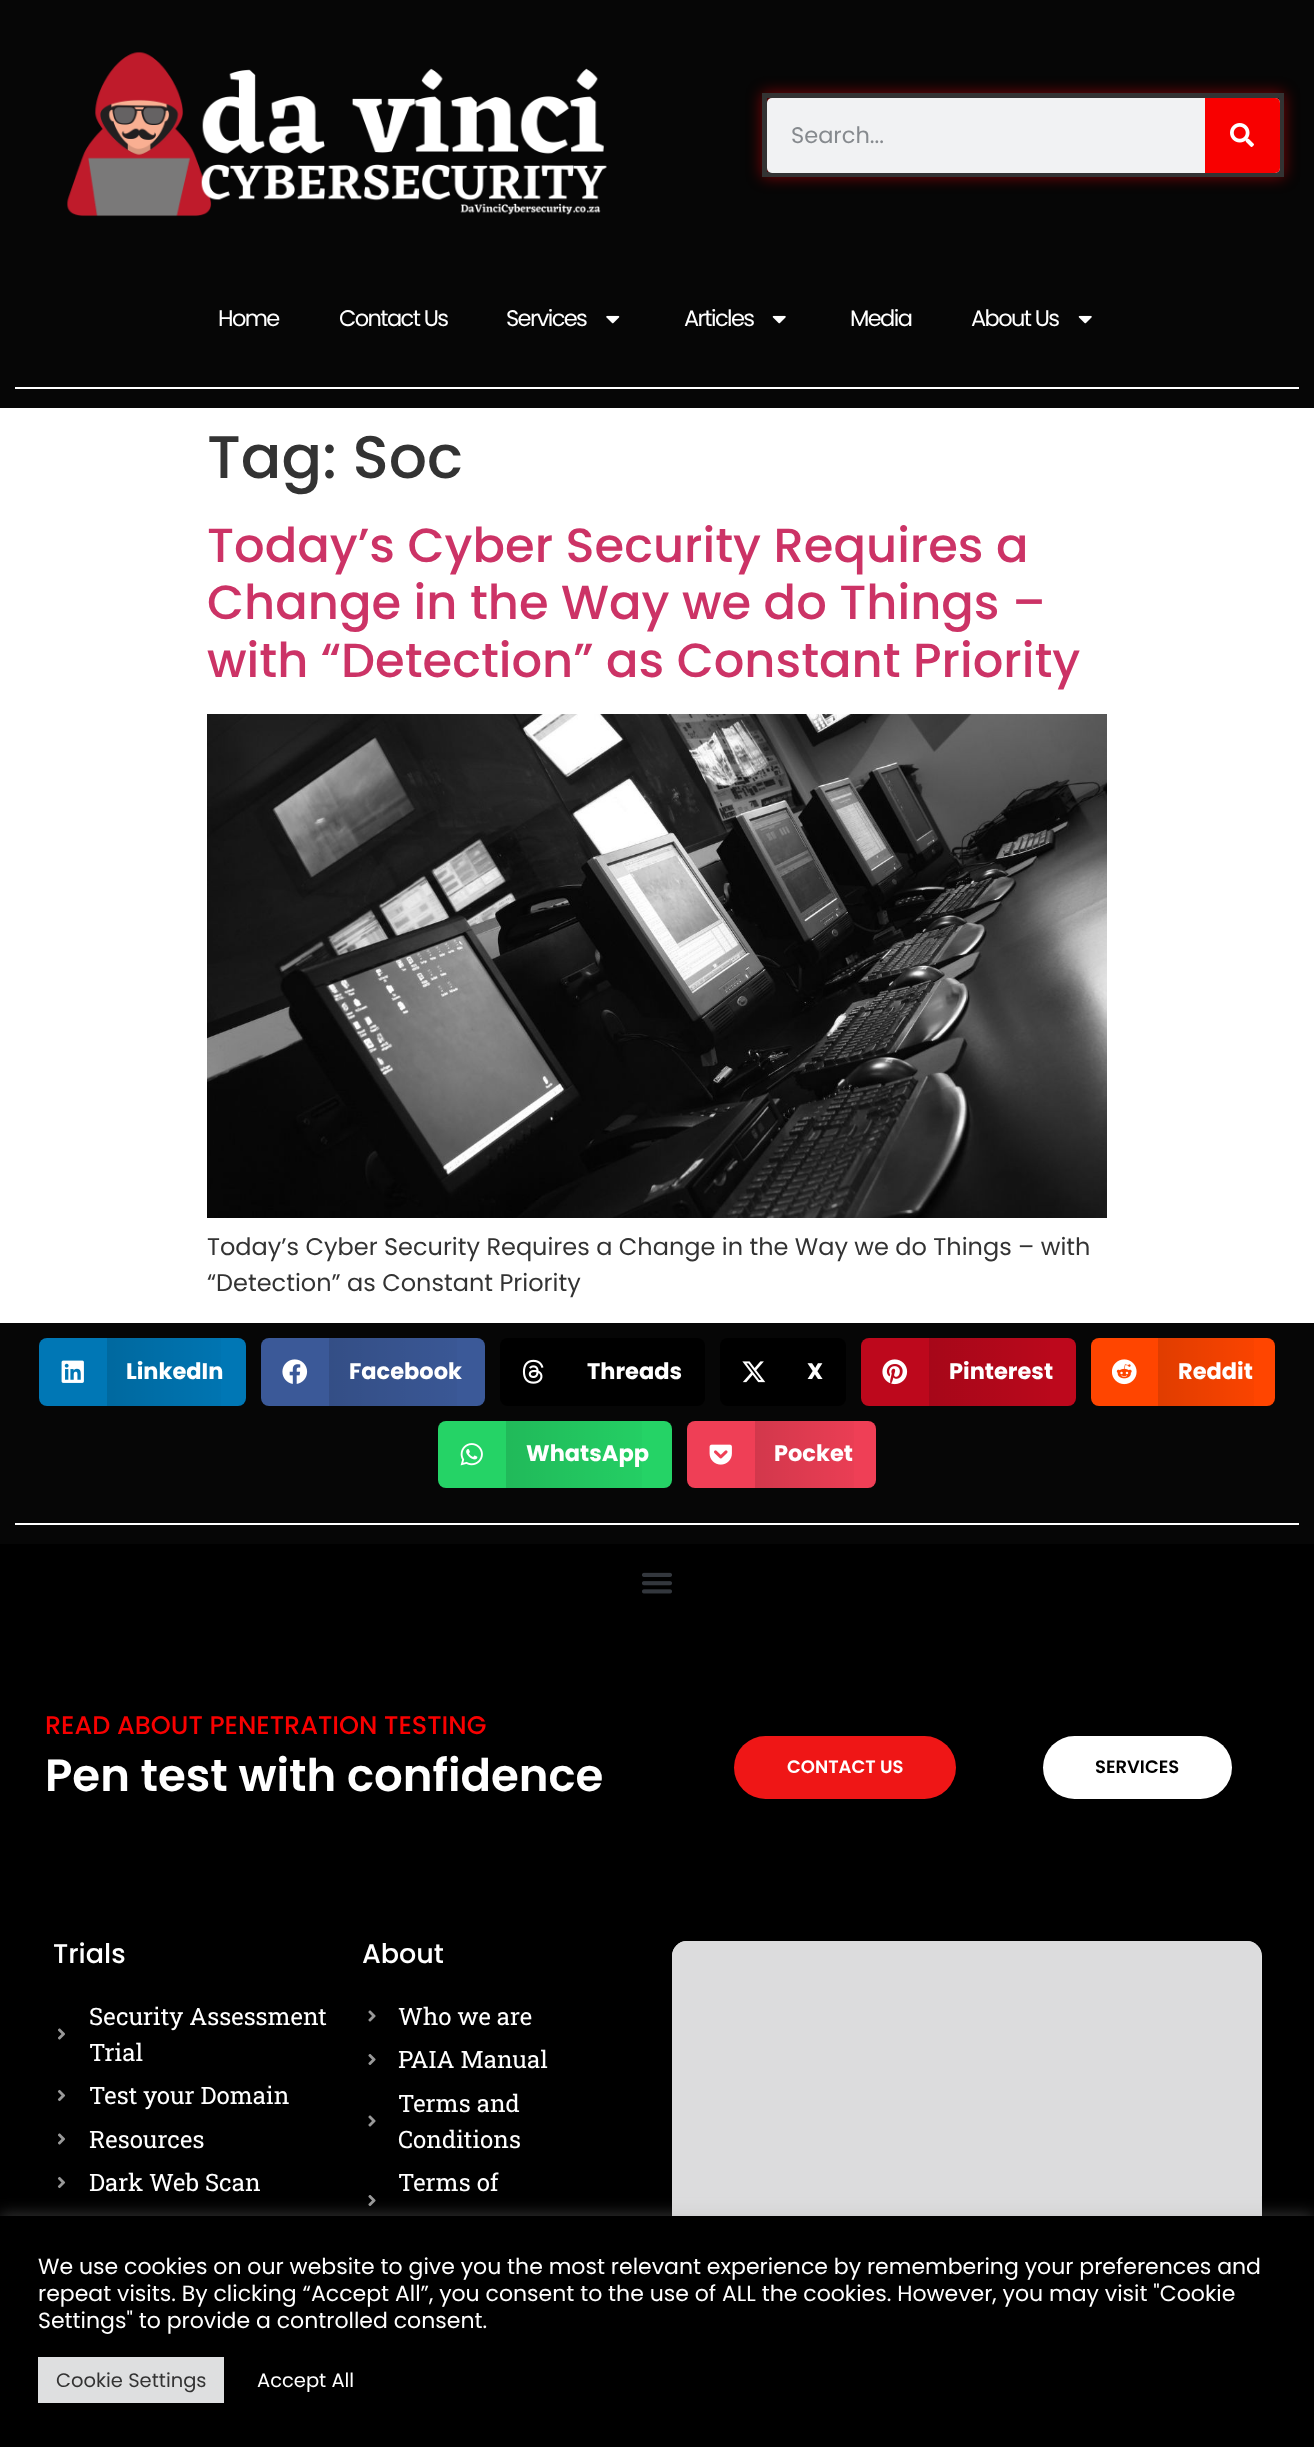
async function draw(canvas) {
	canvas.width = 1314;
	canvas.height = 2447;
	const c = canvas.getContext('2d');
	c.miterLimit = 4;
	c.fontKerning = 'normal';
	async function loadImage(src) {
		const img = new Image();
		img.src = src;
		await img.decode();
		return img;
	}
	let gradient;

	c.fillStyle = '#fff';
	c.fillRect(0, 0, 1314, 2447);
	c.fillStyle = '#060606';
	c.fillRect(0, 0, 1314, 408);
	c.drawImage(await loadImage('img1.png'), 67, 51, 540, 166);
	c.fillStyle = '#f4000380';
	c.filter = 'blur(7.5px)';
	c.beginPath();
	c.rect(762, 93, 522, 84);
	c.fill();
	c.filter = 'none';
	c.strokeStyle = '#333';
	c.lineWidth = 5;
	c.strokeRect(764.5, 95.5, 517, 79);
	c.fillStyle = '#f1f2f3';
	c.beginPath();
	c.roundRect(767, 98, 513, 75, 5);
	c.fill();
	c.font = '22.5px Poppins';
	c.fillStyle = '#868a8e';
	c.fillText('Search...', 791, 143);
	c.fillStyle = '#f80000';
	c.beginPath();
	c.roundRect(1205, 98, 75, 75, [0, 5, 5, 0]);
	c.fill();
	c.drawImage(await loadImage('img2.png'), 1230, 123, 24, 24);
	c.letterSpacing = '-1.6px';
	c.fillStyle = '#fff';
	for (const [text, x, y] of [
		['Home', 218, 326],
		['Contact Us', 339, 326],
		['Services', 506, 326],
	]) {
		c.fillText(text, x, y);
	}
	c.drawImage(await loadImage('img3.png'), 606, 315, 14, 9);
	c.fillText('Articles', 684, 326);
	c.drawImage(await loadImage('img4.png'), 772, 315, 14, 9);
	c.fillText('Media', 850, 326);
	c.fillText('About Us', 971, 326);
	c.drawImage(await loadImage('img4.png'), 1078, 315, 14, 9);
	c.fillRect(15, 387, 1284, 2);
	c.letterSpacing = '0px';
	c.font = '500 60px Poppins';
	c.fillStyle = '#333';
	c.fillText('Tag: Soc', 207, 478);
	c.font = '500 48px Poppins';
	c.fillStyle = '#c36';
	for (const [text, x, y] of [
		['Today’s Cyber Security Requires a', 207, 562],
		['Change in the Way we do Things –', 207, 619],
		['with “Detection” as Constant Priority', 207, 677],
	]) {
		c.fillText(text, x, y);
	}
	c.drawImage(await loadImage('img5.png'), 207, 714, 900, 504);
	c.font = '24px Poppins';
	c.fillStyle = '#333';
	c.fillText('Today’s Cyber Security Requires a Change in the Way we do Things – with', 207, 1255);
	c.fillText('“Detection” as Constant Priority', 207, 1291);
	c.fillStyle = '#060606';
	c.fillRect(0, 1323, 1314, 221);
	c.fillStyle = '#0077b5';
	c.beginPath();
	c.roundRect(39, 1338, 207, 68, 8);
	c.fill();
	c.drawImage(await loadImage('img6.png'), 61, 1360, 23, 23);
	gradient = c.createLinearGradient(107, 1372, 246, 1372);
	gradient.addColorStop(0, '#0000001f');
	gradient.addColorStop(1, '#00000000');
	c.fillStyle = gradient;
	c.fillRect(107, 1338, 114, 68);
	c.font = 'bold 22.5px Poppins';
	c.fillStyle = '#fff';
	c.fillText('LinkedIn', 126, 1379);
	c.fillStyle = '#3b5998';
	c.beginPath();
	c.roundRect(261, 1338, 224, 68, 8);
	c.fill();
	c.drawImage(await loadImage('img7.png'), 282, 1359, 26, 25);
	gradient = c.createLinearGradient(329, 1372, 485, 1372);
	gradient.addColorStop(0, '#0000001f');
	gradient.addColorStop(1, '#00000000');
	c.fillStyle = gradient;
	c.fillRect(329, 1338, 128, 68);
	c.fillStyle = '#fff';
	c.fillText('Facebook', 349, 1379);
	c.fillStyle = '#000';
	c.beginPath();
	c.roundRect(500, 1338, 205, 68, 8);
	c.fill();
	c.drawImage(await loadImage('img8.png'), 522, 1359, 22, 25);
	c.fillStyle = '#fff';
	c.fillText('Threads', 587, 1379);
	c.fillStyle = '#000';
	c.beginPath();
	c.roundRect(720, 1338, 126, 68, 8);
	c.fill();
	c.drawImage(await loadImage('img9.png'), 742, 1361, 24, 22);
	c.fillStyle = '#fff';
	c.fillText('X', 807, 1379);
	c.fillStyle = '#bd081c';
	c.beginPath();
	c.roundRect(861, 1338, 215, 68, 8);
	c.fill();
	c.drawImage(await loadImage('img10.png'), 882, 1359, 26, 26);
	gradient = c.createLinearGradient(929, 1372, 1076, 1372);
	gradient.addColorStop(0, '#0000001f');
	gradient.addColorStop(1, '#00000000');
	c.fillStyle = gradient;
	c.fillRect(929, 1338, 121, 68);
	c.fillStyle = '#fff';
	c.fillText('Pinterest', 949, 1379);
	c.fillStyle = '#ff4500';
	c.beginPath();
	c.roundRect(1091, 1338, 184, 68, 8);
	c.fill();
	c.drawImage(await loadImage('img11.png'), 1112, 1359, 25, 26);
	gradient = c.createLinearGradient(1158, 1372, 1275, 1372);
	gradient.addColorStop(0, '#0000001f');
	gradient.addColorStop(1, '#00000000');
	c.fillStyle = gradient;
	c.fillRect(1158, 1338, 96, 68);
	c.fillStyle = '#fff';
	c.fillText('Reddit', 1178, 1379);
	c.fillStyle = '#25d366';
	c.beginPath();
	c.roundRect(438, 1421, 234, 67, 8);
	c.fill();
	c.drawImage(await loadImage('img12.png'), 460, 1443, 23, 23);
	gradient = c.createLinearGradient(506, 1454, 672, 1454);
	gradient.addColorStop(0, '#0000001f');
	gradient.addColorStop(1, '#00000000');
	c.fillStyle = gradient;
	c.fillRect(506, 1421, 136, 67);
	c.fillStyle = '#fff';
	c.fillText('WhatsApp', 526, 1461);
	c.fillStyle = '#ef3f56';
	c.beginPath();
	c.roundRect(687, 1421, 189, 67, 8);
	c.fill();
	c.drawImage(await loadImage('img13.png'), 709, 1444, 23, 21);
	gradient = c.createLinearGradient(755, 1454, 876, 1454);
	gradient.addColorStop(0, '#0000001f');
	gradient.addColorStop(1, '#00000000');
	c.fillStyle = gradient;
	c.fillRect(755, 1421, 99, 67);
	c.fillStyle = '#fff';
	c.fillText('Pocket', 774, 1461);
	c.fillRect(15, 1523, 1284, 2);
	c.fillStyle = '#000';
	c.fillRect(0, 1544, 1314, 672);
	c.drawImage(await loadImage('img14.png'), 642, 1572, 30, 22);
	c.font = '500 25.5px Poppins';
	c.fillStyle = '#f80000';
	c.fillText('READ ABOUT PENETRATION TESTING', 45, 1734);
	c.font = '600 45px Poppins';
	c.fillStyle = '#fff';
	c.fillText('Pen test with confidence', 45, 1791);
	c.fillStyle = '#ef1616';
	c.beginPath();
	c.roundRect(734, 1736, 222, 63, 31.5);
	c.fill();
	c.font = '600 18px Poppins';
	c.fillStyle = '#fff';
	c.fillText('CONTACT US', 787, 1773);
	c.beginPath();
	c.roundRect(1043, 1736, 189, 63, 31.5);
	c.fill();
	c.fillStyle = '#000';
	c.fillText('SERVICES', 1095, 1773);
	c.font = '500 27px Poppins';
	c.fillStyle = '#fff';
	c.fillText('Trials', 53, 1963);
	c.drawImage(await loadImage('img15.png'), 58, 2028, 7, 12);
	c.font = '24px Roboto Slab';
	c.fillText('Security Assessment', 89, 2025);
	c.fillText('Trial', 89, 2061);
	c.drawImage(await loadImage('img16.png'), 57, 2089, 9, 13);
	c.fillText('Test your Domain', 89, 2104);
	c.drawImage(await loadImage('img15.png'), 58, 2133, 7, 12);
	c.fillText('Resources', 89, 2148);
	c.drawImage(await loadImage('img16.png'), 57, 2176, 9, 13);
	c.fillText('Dark Web Scan', 89, 2191);
	c.font = '500 27px Poppins';
	c.fillText('About', 362, 1963);
	c.drawImage(await loadImage('img17.png'), 368, 2010, 8, 12);
	c.font = '24px Roboto Slab';
	c.fillText('Who we are', 398, 2025);
	c.drawImage(await loadImage('img18.png'), 368, 2054, 8, 11);
	c.fillText('PAIA Manual', 398, 2068);
	c.drawImage(await loadImage('img17.png'), 368, 2115, 8, 12);
	for (const [text, x, y] of [
		['Terms and', 398, 2112],
		['Conditions', 398, 2148],
		['Terms of', 398, 2191],
	]) {
		c.fillText(text, x, y);
	}
	c.drawImage(await loadImage('img18.png'), 368, 2195, 8, 11);
	c.fillStyle = '#e4e4e4';
	c.beginPath();
	c.roundRect(672, 1941, 590, 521, 15);
	c.fill();
	c.drawImage(await loadImage('img19.png'), 672, 1941, 590, 275);
	c.fillStyle = '#acabab4d';
	c.filter = 'blur(7.5px)';
	c.beginPath();
	c.rect(0, 2214, 1314, 233);
	c.fill();
	c.filter = 'none';
	c.fillStyle = '#000';
	c.fillRect(0, 2216, 1314, 231);
	c.font = '22px Poppins';
	c.fillStyle = '#fff';
	for (const [text, x, y] of [
		['We use cookies on our website to give you the most relevant experience by remembering your preferences and', 38, 2274],
		['repeat visits. By clicking “Accept All”, you consent to the use of ALL the cookies. However, you may visit "Cookie', 38, 2301],
		['Settings" to provide a controlled consent.', 38, 2328],
	]) {
		c.fillText(text, x, y);
	}
	c.fillStyle = '#dedfe0';
	c.fillRect(38, 2357, 186, 46);
	c.font = '19.5px Poppins';
	c.fillStyle = '#333';
	c.fillText('Cookie Settings', 56, 2387);
	c.fillStyle = '#fff';
	c.fillText('Accept All', 257, 2387);
}

draw(document.querySelector('canvas'));
